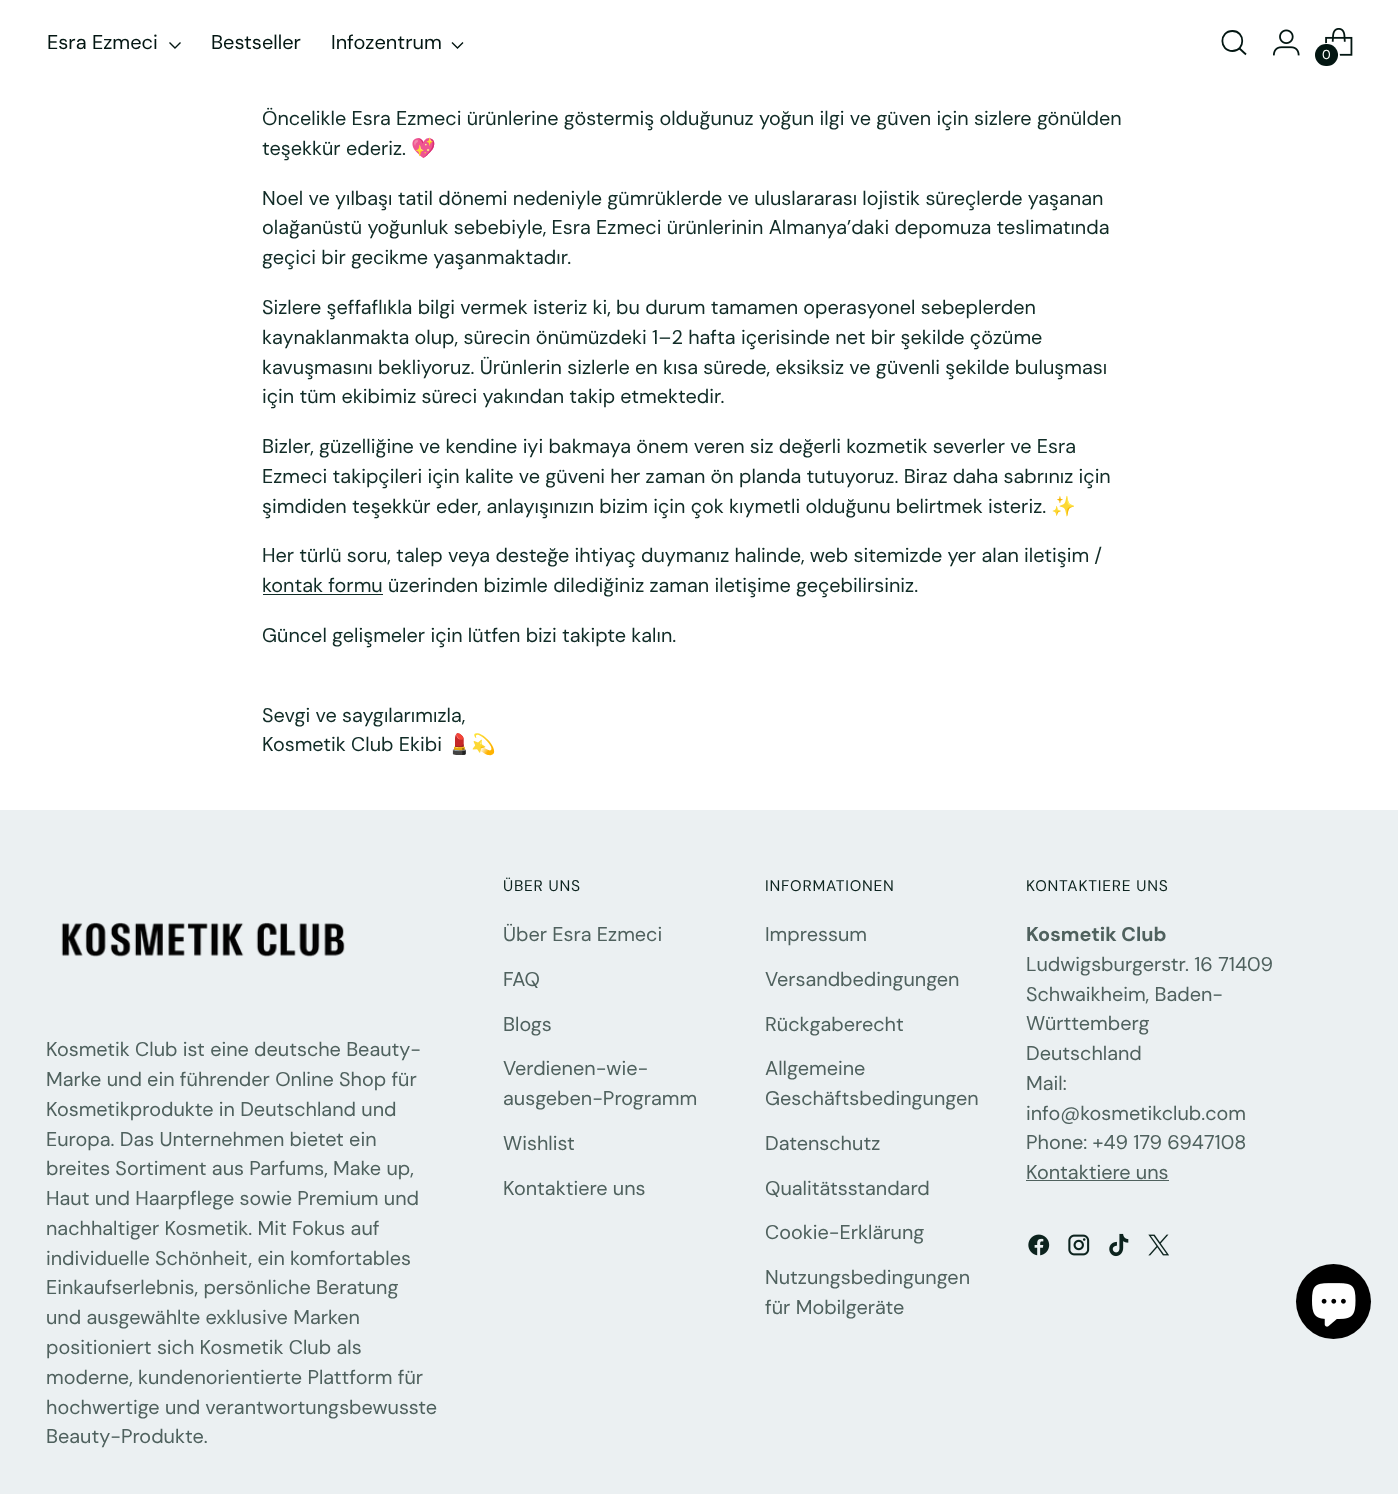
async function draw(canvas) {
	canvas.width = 1398;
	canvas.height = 1494;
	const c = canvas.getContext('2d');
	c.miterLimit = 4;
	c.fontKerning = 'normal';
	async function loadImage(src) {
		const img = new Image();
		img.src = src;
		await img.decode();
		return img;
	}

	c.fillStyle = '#fff';
	c.fillRect(0, 0, 1398, 1494);
	c.font = '20px "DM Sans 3"';
	c.fillStyle = '#031612';
	c.fillText('Esra Ezmeci', 47, 49);
	c.beginPath();
	c.moveTo(169.5, 42.5);
	c.lineTo(175, 48);
	c.lineTo(180.5, 42.5);
	c.strokeStyle = '#031612';
	c.lineWidth = 1.4;
	c.stroke();
	c.fillText('Bestseller', 211, 49);
	c.fillText('Infozentrum', 331, 49);
	c.beginPath();
	c.moveTo(452, 42.5);
	c.lineTo(457.5, 48);
	c.lineTo(463, 42.5);
	c.stroke();
	c.beginPath();
	c.moveTo(1232.5, 51);
	c.bezierCurveTo(1245.5, 51, 1245.5, 31, 1232.5, 31);
	c.bezierCurveTo(1219, 31, 1219, 51, 1232.5, 51);
	c.closePath();
	c.lineWidth = 1.8;
	c.lineCap = 'round';
	c.stroke();
	c.beginPath();
	c.moveTo(1239.5, 48.5);
	c.lineTo(1246, 54.5);
	c.lineCap = 'butt';
	c.stroke();
	c.drawImage(await loadImage('img1.png'), 1273, 29, 27, 27);
	c.drawImage(await loadImage('img2.png'), 1325, 28, 28, 28);
	c.beginPath();
	c.arc(1327, 56, 12, 0, 2 * Math.PI);
	c.strokeStyle = '#fff';
	c.lineWidth = 2;
	c.stroke();
	c.beginPath();
	c.roundRect(1315, 44, 23, 22, 11);
	c.fill();
	c.font = '13px "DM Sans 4"';
	c.fillStyle = '#fff';
	c.fillText('0', 1322, 59);
	c.font = '19.85px DM Sans';
	c.fillStyle = '#102b26';
	c.fillText('Öncelikle Esra Ezmeci ürünlerine göstermiş olduğunuz yoğun ilgi ve güven için sizlere gönülden', 262, 125);
	c.fillText('teşekkür ederiz.', 262, 155);
	c.font = '19.85px Noto Color Emoji';
	c.fillText('💖', 411, 155);
	c.font = '19.85px DM Sans';
	for (const [text, x, y] of [
		['Noel ve yılbaşı tatil dönemi nedeniyle gümrüklerde ve uluslararası lojistik süreçlerde yaşanan', 262, 205],
		['olağanüstü yoğunluk sebebiyle, Esra Ezmeci ürünlerinin Almanya’daki depomuza teslimatında', 262, 234],
		['geçici bir gecikme yaşanmaktadır.', 262, 264],
		['Sizlere şeffaflıkla bilgi vermek isteriz ki, bu durum tamamen operasyonel sebeplerden', 262, 314],
		['kaynaklanmakta olup, sürecin önümüzdeki 1–2 hafta içerisinde net bir şekilde çözüme', 262, 344],
		['kavuşmasını bekliyoruz. Ürünlerin sizlerle en kısa sürede, eksiksiz ve güvenli şekilde buluşması', 262, 374],
		['için tüm ekibimiz süreci yakından takip etmektedir.', 262, 403],
		['Bizler, güzelliğine ve kendine iyi bakmaya önem veren siz değerli kozmetik severler ve Esra', 262, 453],
		['Ezmeci takipçileri için kalite ve güveni her zaman ön planda tutuyoruz. Biraz daha sabrınız için', 262, 483],
		['şimdiden teşekkür eder, anlayışınızın bizim için çok kıymetli olduğunu belirtmek isteriz.', 262, 513],
	]) {
		c.fillText(text, x, y);
	}
	c.font = '19.85px Noto Color Emoji';
	c.fillText('✨', 1051, 513);
	c.font = '19.85px DM Sans';
	c.fillText('Her türlü soru, talep veya desteğe ihtiyaç duymanız halinde, web sitemizde yer alan iletişim /', 262, 562);
	c.fillRect(263, 594, 120, 1);
	for (const [text, x, y] of [
		['kontak formu üzerinden bizimle dilediğiniz zaman iletişime geçebilirsiniz.', 262, 592],
		['Güncel gelişmeler için lütfen bizi takipte kalın.', 262, 642],
		['Sevgi ve saygılarımızla,', 262, 722],
		['Kosmetik Club Ekibi', 262, 751],
	]) {
		c.fillText(text, x, y);
	}
	c.font = '19.85px Noto Color Emoji';
	c.fillText('💄💫', 447, 751);
	c.fillStyle = '#ebf0f2';
	c.fillRect(0, 810, 1398, 684);
	c.drawImage(await loadImage('img3.png'), 61, 922, 284, 35);
	c.font = '19.85px DM Sans';
	c.fillStyle = '#4f615e';
	for (const [text, x, y] of [
		['Kosmetik Club ist eine deutsche Beauty-', 46, 1056],
		['Marke und ein führender Online Shop für', 46, 1086],
		['Kosmetikprodukte in Deutschland und', 46, 1116],
		['Europa. Das Unternehmen bietet ein', 46, 1146],
		['breites Sortiment aus Parfums, Make up,', 46, 1175],
		['Haut und Haarpflege sowie Premium und', 46, 1205],
		['nachhaltiger Kosmetik. Mit Fokus auf', 46, 1235],
		['individuelle Schönheit, ein komfortables', 46, 1265],
		['Einkaufserlebnis, persönliche Beratung', 46, 1294],
		['und ausgewählte exklusive Marken', 46, 1324],
		['positioniert sich Kosmetik Club als', 46, 1354],
		['moderne, kundenorientierte Plattform für', 46, 1384],
		['hochwertige und verantwortungsbewusste', 46, 1414],
		['Beauty-Produkte.', 46, 1443],
	]) {
		c.fillText(text, x, y);
	}
	c.letterSpacing = '0.75px';
	c.font = '15.5px "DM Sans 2"';
	c.fillStyle = '#0c231e';
	c.fillText('ÜBER UNS', 503, 891);
	c.letterSpacing = '0px';
	c.font = '19.85px DM Sans';
	c.fillStyle = '#4f615e';
	for (const [text, x, y] of [
		['Über Esra Ezmeci', 503, 941],
		['FAQ', 503, 986],
		['Blogs', 503, 1031],
		['Verdienen-wie-', 503, 1075],
		['ausgeben-Programm', 503, 1105],
		['Wishlist', 503, 1150],
		['Kontaktiere uns', 503, 1195],
	]) {
		c.fillText(text, x, y);
	}
	c.letterSpacing = '0.75px';
	c.font = '15.5px "DM Sans 2"';
	c.fillStyle = '#0c231e';
	c.fillText('INFORMATIONEN', 765, 891);
	c.letterSpacing = '0px';
	c.font = '19.85px DM Sans';
	c.fillStyle = '#4f615e';
	for (const [text, x, y] of [
		['Impressum', 765, 941],
		['Versandbedingungen', 765, 986],
		['Rückgaberecht', 765, 1031],
		['Allgemeine', 765, 1075],
		['Geschäftsbedingungen', 765, 1105],
		['Datenschutz', 765, 1150],
		['Qualitätsstandard', 765, 1195],
		['Cookie-Erklärung', 765, 1239],
		['Nutzungsbedingungen', 765, 1284],
		['für Mobilgeräte', 765, 1314],
	]) {
		c.fillText(text, x, y);
	}
	c.letterSpacing = '0.75px';
	c.font = '15.5px "DM Sans 2"';
	c.fillStyle = '#0c231e';
	c.fillText('KONTAKTIERE UNS', 1026, 891);
	c.letterSpacing = '0px';
	c.font = 'bold 19.85px DM Sans';
	c.fillStyle = '#4f615e';
	c.fillText('Kosmetik Club', 1026, 941);
	c.font = '19.85px DM Sans';
	for (const [text, x, y] of [
		['Ludwigsburgerstr. 16 71409', 1026, 971],
		['Schwaikheim, Baden-', 1026, 1001],
		['Württemberg', 1026, 1030],
		['Deutschland', 1026, 1060],
		['Mail:', 1026, 1090],
		['info@kosmetikclub.com', 1026, 1120],
		['Phone: +49 179 6947108', 1026, 1149],
		['Kontaktiere uns', 1026, 1179],
	]) {
		c.fillText(text, x, y);
	}
	c.fillRect(1026, 1180, 143, 1);
	c.drawImage(await loadImage('img4.png'), 1028, 1234, 22, 22);
	c.drawImage(await loadImage('img5.png'), 1068, 1234, 22, 22);
	c.drawImage(await loadImage('img6.png'), 1109, 1233, 20, 24);
	c.drawImage(await loadImage('img7.png'), 1148, 1234, 21, 22);
	c.fillStyle = '#000';
	c.beginPath();
	c.arc(1333.5, 1301.5, 37.5, 0, 2 * Math.PI);
	c.fill();
	c.drawImage(await loadImage('img8.png'), 1312, 1283, 44, 44);
}

draw(document.querySelector('canvas'));
